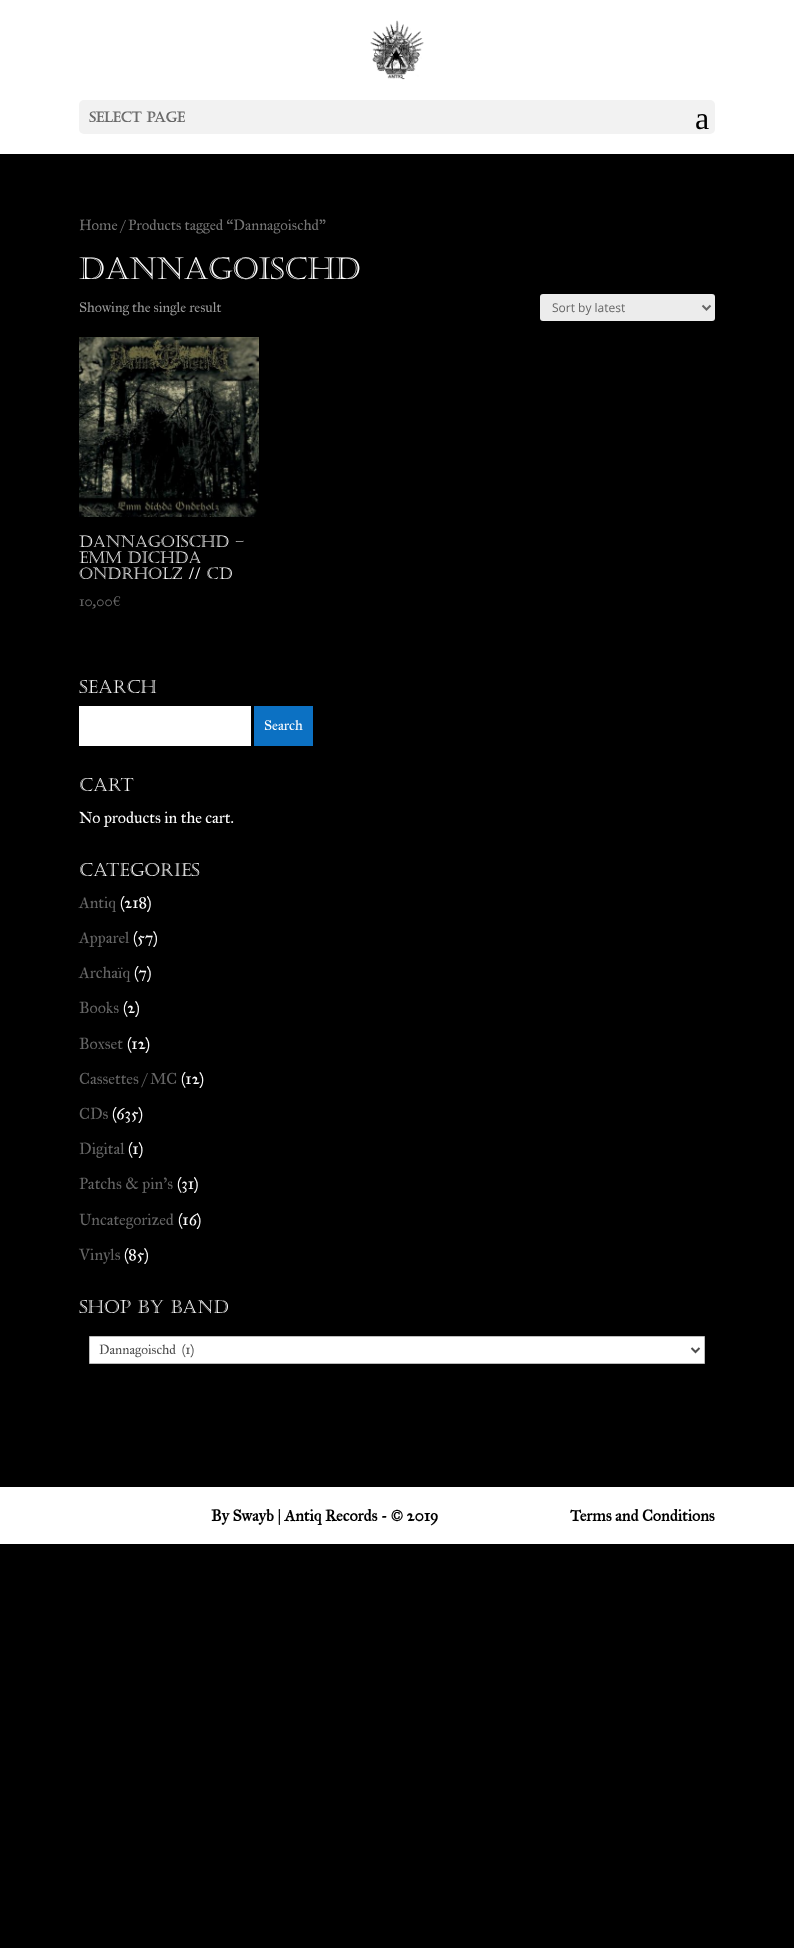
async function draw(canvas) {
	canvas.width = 794;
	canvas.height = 1948;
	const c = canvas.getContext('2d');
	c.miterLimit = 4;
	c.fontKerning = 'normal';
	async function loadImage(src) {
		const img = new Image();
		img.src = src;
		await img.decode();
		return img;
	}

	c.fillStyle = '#000';
	c.fillRect(0, 0, 794, 1948);
	c.fillStyle = '#fff';
	c.fillRect(0, 0, 794, 154);
	c.drawImage(await loadImage('img1.png'), 370, 20, 54, 60);
	c.fillStyle = '#f2f2f2';
	c.beginPath();
	c.roundRect(79, 100, 636, 34, 5);
	c.fill();
	c.font = 'bold 14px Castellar';
	c.fillStyle = '#666';
	c.fillText('Select Page', 89, 122);
	c.font = '32px Liberation Serif';
	c.fillStyle = '#000';
	c.fillText('a', 695, 129);
	c.font = '14.75px IM FELL Great Primer';
	c.fillStyle = '#767676';
	c.fillText('Home / Products tagged “Dannagoischd”', 79, 230);
	c.font = '30px Castellar';
	c.fillStyle = '#fff';
	c.fillText('Dannagoischd', 79, 279);
	c.font = '14px IM FELL Great Primer';
	c.fillStyle = '#999';
	c.fillText('Showing the single result', 79, 312);
	c.fillStyle = '#ececec';
	c.beginPath();
	c.roundRect(540, 294, 175, 27, 3);
	c.fill();
	c.beginPath();
	c.moveTo(702.5, 305.5);
	c.lineTo(706.5, 309.5);
	c.lineTo(710.5, 305.5);
	c.strokeStyle = '#666';
	c.lineWidth = 2;
	c.stroke();
	c.font = '12px Open Sans';
	c.fillStyle = '#666';
	c.fillText('Sort by latest', 552, 312);
	c.drawImage(await loadImage('img2.png'), 79, 337, 180, 180);
	c.font = '16px Castellar';
	c.fillStyle = '#fff';
	for (const [text, x, y] of [
		['Dannagoischd –', 79, 547],
		['Emm Dichda', 79, 563],
		['Ondrholz // CD', 79, 579],
	]) {
		c.fillText(text, x, y);
	}
	c.font = '14px IM FELL Great Primer';
	c.fillStyle = '#666';
	c.fillText('10,00€', 79, 606);
	c.font = '18px Castellar';
	c.fillStyle = '#fff';
	c.fillText('Search', 79, 693);
	c.fillRect(79, 706, 172, 40);
	c.fillStyle = '#0c71c3';
	c.fillRect(254, 706, 59, 40);
	c.font = '14px IM FELL Great Primer';
	c.fillStyle = '#fff';
	c.fillText('Search', 264, 730);
	c.font = '18px Castellar';
	c.fillText('Cart', 79, 791);
	c.font = '16px IM FELL Great Primer';
	c.fillText('No products in the cart.', 79, 823);
	c.font = '18px Castellar';
	c.fillText('Categories', 79, 876);
	c.font = '16px IM FELL Great Primer';
	c.fillStyle = '#666';
	c.fillText('Antiq', 79, 908);
	c.fillStyle = '#fff';
	c.fillText('(218)', 120, 908);
	c.fillStyle = '#666';
	c.fillText('Apparel', 79, 943);
	c.fillStyle = '#fff';
	c.fillText('(57)', 133, 943);
	c.fillStyle = '#666';
	c.fillText('Archaïq', 79, 978);
	c.fillStyle = '#fff';
	c.fillText('(7)', 134, 978);
	c.fillStyle = '#666';
	c.fillText('Books', 79, 1013);
	c.fillStyle = '#fff';
	c.fillText('(2)', 123, 1013);
	c.fillStyle = '#666';
	c.fillText('Boxset', 79, 1049);
	c.fillStyle = '#fff';
	c.fillText('(12)', 127, 1049);
	c.fillStyle = '#666';
	c.fillText('Cassettes / MC', 79, 1084);
	c.fillStyle = '#fff';
	c.fillText('(12)', 181, 1084);
	c.fillStyle = '#666';
	c.fillText('CDs', 79, 1119);
	c.fillStyle = '#fff';
	c.fillText('(635)', 112, 1119);
	c.fillStyle = '#666';
	c.fillText('Digital', 79, 1154);
	c.fillStyle = '#fff';
	c.fillText('(1)', 128, 1154);
	c.fillStyle = '#666';
	c.fillText('Patchs & pin\'s', 79, 1189);
	c.fillStyle = '#fff';
	c.fillText('(31)', 177, 1189);
	c.fillStyle = '#666';
	c.fillText('Uncategorized', 79, 1225);
	c.fillStyle = '#fff';
	c.fillText('(16)', 178, 1225);
	c.fillStyle = '#666';
	c.fillText('Vinyls', 79, 1260);
	c.fillStyle = '#fff';
	c.fillText('(85)', 124, 1260);
	c.font = '18px Castellar';
	c.fillText('Shop by Band', 79, 1313);
	c.beginPath();
	c.rect(89.5, 1336.5, 615, 27);
	c.fill();
	c.strokeStyle = '#bbb';
	c.lineWidth = 1;
	c.stroke();
	c.beginPath();
	c.moveTo(691.5, 1348);
	c.lineTo(695.5, 1352);
	c.lineTo(699.5, 1348);
	c.strokeStyle = '#4e4e4e';
	c.lineWidth = 2;
	c.stroke();
	c.font = '13.25px IM FELL Great Primer';
	c.fillStyle = '#4e4e4e';
	c.fillText('Dannagoischd  (1)', 99, 1354);
	c.fillStyle = '#fff';
	c.fillRect(0, 1487, 794, 57);
	c.font = 'bold 16px IM FELL Great Primer';
	c.fillStyle = '#000';
	c.fillText('By Swayb | Antiq Records - © 2019', 211, 1521);
	c.fillText('Terms and Conditions', 570, 1521);
}

draw(document.querySelector('canvas'));
